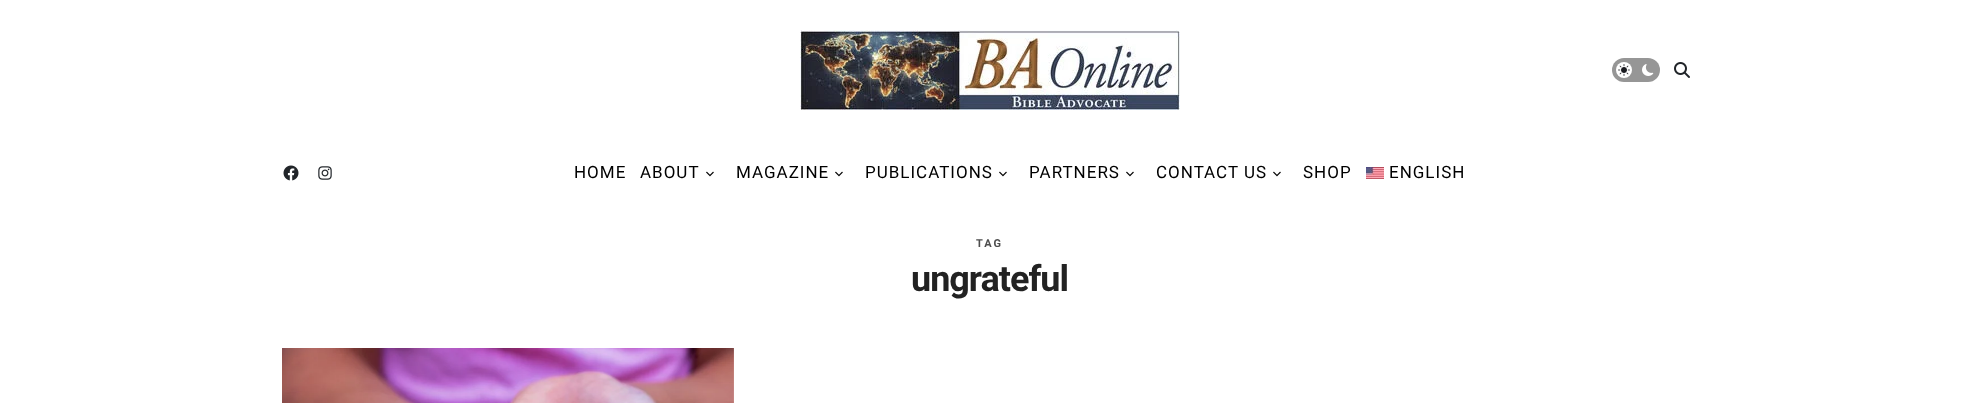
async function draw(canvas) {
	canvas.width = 1979;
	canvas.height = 403;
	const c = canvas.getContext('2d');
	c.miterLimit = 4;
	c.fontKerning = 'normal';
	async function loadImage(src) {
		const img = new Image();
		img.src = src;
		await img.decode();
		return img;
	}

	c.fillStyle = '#fff';
	c.fillRect(0, 0, 1979, 403);
	c.drawImage(await loadImage('img1.png'), 800, 30, 380, 80);
	c.fillStyle = '#969696';
	c.beginPath();
	c.roundRect(1612, 58, 48, 24, 12);
	c.fill();
	c.fillStyle = '#fff';
	c.beginPath();
	c.arc(1624, 70, 8, 0, 2 * Math.PI);
	c.fill();
	c.drawImage(await loadImage('img2.png'), 1618, 64, 12, 12);
	c.drawImage(await loadImage('img3.png'), 1642, 64, 12, 12);
	c.drawImage(await loadImage('img4.png'), 1674, 62, 16, 16);
	c.drawImage(await loadImage('img5.png'), 283, 165, 16, 16);
	c.drawImage(await loadImage('img6.png'), 318, 166, 14, 14);
	c.letterSpacing = '1px';
	c.font = '17px Roboto';
	c.fillStyle = '#000';
	c.fillText('HOME', 574, 178);
	c.fillText('ABOUT', 640, 178);
	c.drawImage(await loadImage('img7.png'), 706, 171, 8, 6);
	c.fillText('MAGAZINE', 736, 178);
	c.drawImage(await loadImage('img7.png'), 835, 171, 8, 6);
	c.fillText('PUBLICATIONS', 865, 178);
	c.drawImage(await loadImage('img7.png'), 999, 171, 8, 6);
	c.fillText('PARTNERS', 1029, 178);
	c.drawImage(await loadImage('img7.png'), 1126, 171, 8, 6);
	c.fillText('CONTACT US', 1156, 178);
	c.drawImage(await loadImage('img7.png'), 1273, 171, 8, 6);
	c.fillText('SHOP', 1303, 178);
	c.drawImage(await loadImage('img8.png'), 1366, 167, 18, 12);
	c.fillText('ENGLISH', 1389, 178);
	c.letterSpacing = '2px';
	c.font = 'bold 11px Roboto';
	c.fillStyle = '#4e4e4e';
	c.fillText('TAG', 976, 247);
	c.letterSpacing = '-1px';
	c.font = 'bold 36px Roboto';
	c.fillStyle = '#222';
	c.fillText('ungrateful', 911, 291);
	c.drawImage(await loadImage('img9.png'), 282, 348, 452, 55);
}

draw(document.querySelector('canvas'));
